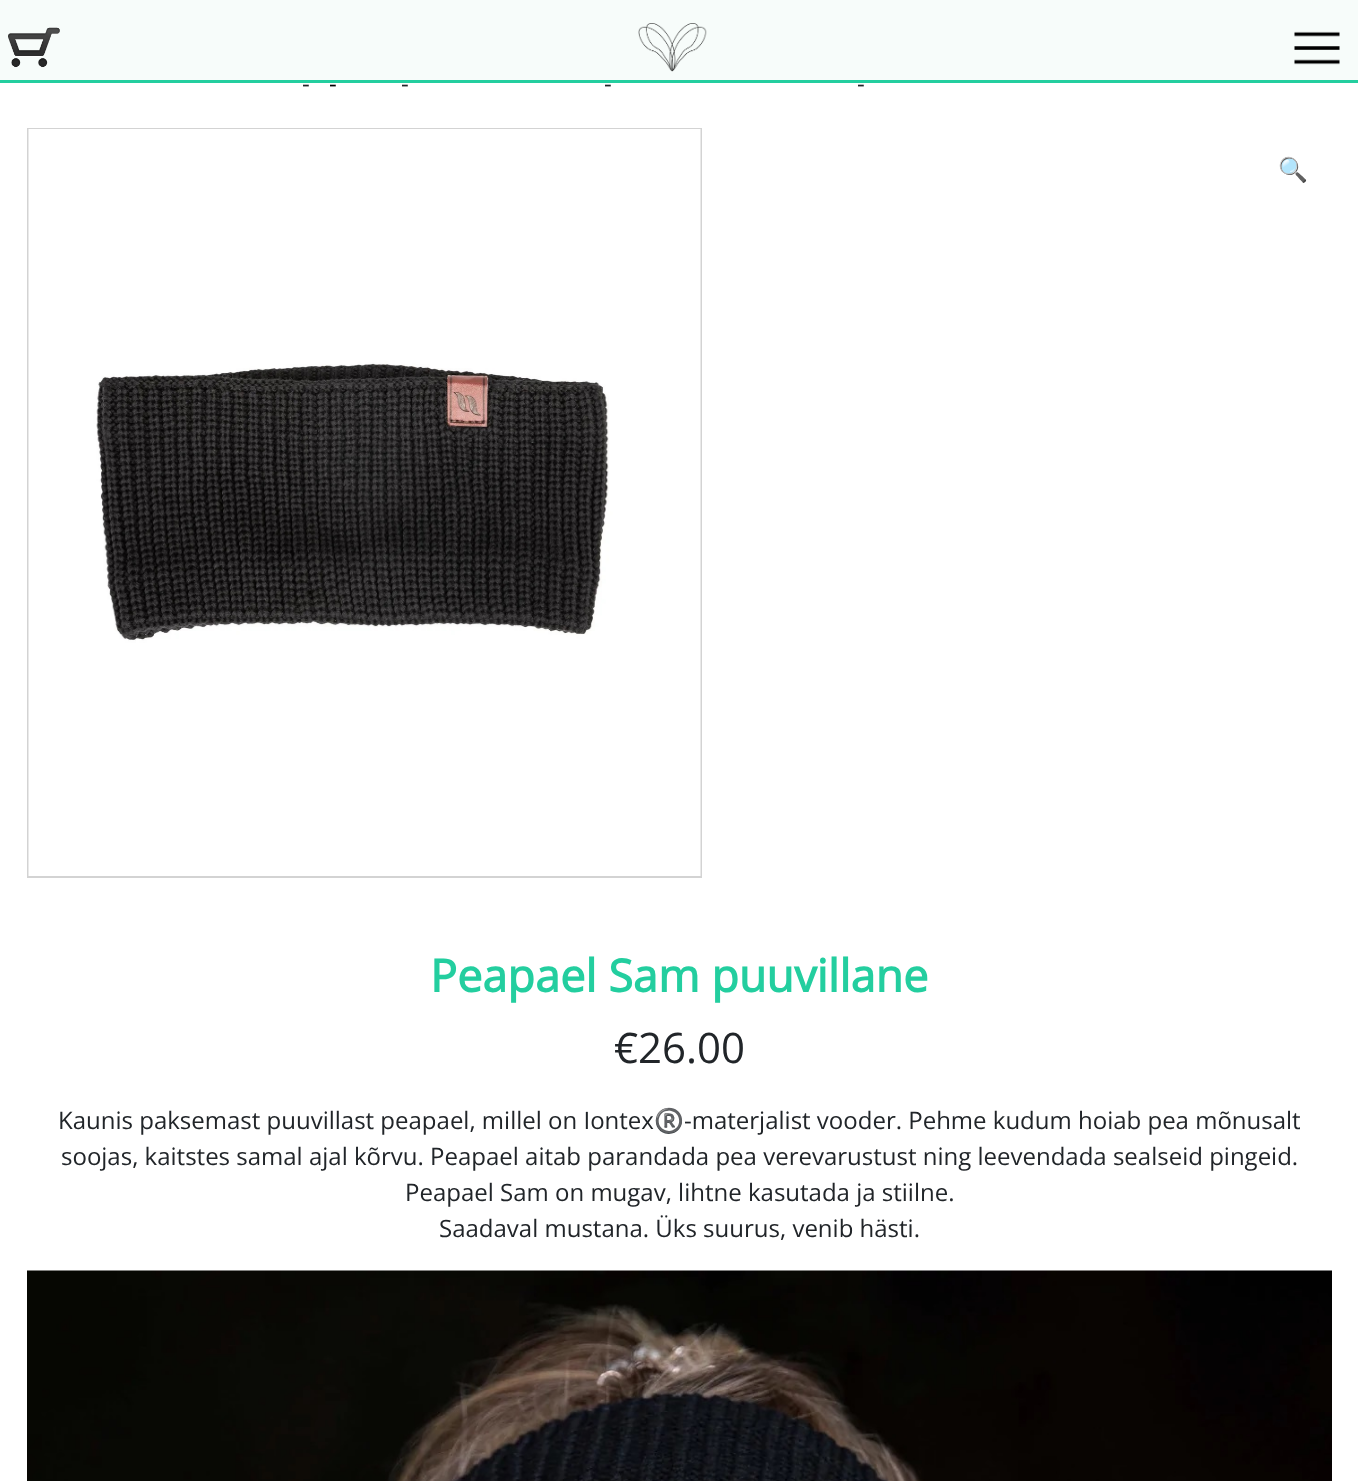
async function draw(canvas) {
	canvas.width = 1358;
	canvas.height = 1481;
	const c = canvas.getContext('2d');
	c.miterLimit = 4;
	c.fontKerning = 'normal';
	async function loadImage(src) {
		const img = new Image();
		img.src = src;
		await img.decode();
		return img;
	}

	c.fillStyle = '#fff';
	c.fillRect(0, 0, 1358, 1481);
	c.fillStyle = '#f7fcfa';
	c.fillRect(0, 0, 1358, 80);
	c.fillStyle = '#23ce9f';
	c.fillRect(0, 80, 1358, 3);
	c.drawImage(await loadImage('img1.png'), 8, 27, 52, 41);
	c.drawImage(await loadImage('img2.png'), 638, 23, 69, 49);
	c.drawImage(await loadImage('img3.png'), 1294, 31, 46, 34);
	c.font = '24px Open Sans';
	c.fillStyle = '#212529';
	c.fillText('-', 302, 92);
	c.fillStyle = '#000';
	c.fillText('-', 329, 92);
	c.fillStyle = '#212529';
	for (const [text, x, y] of [
		['-', 401, 92],
		['-', 604, 92],
		['-', 857, 92],
	]) {
		c.fillText(text, x, y);
	}
	c.strokeStyle = '#d3d3d3';
	c.lineWidth = 2;
	c.strokeRect(28, 129, 673, 748);
	c.drawImage(await loadImage('img4.png'), 28, 129, 673, 747);
	c.font = '24px Noto Color Emoji';
	c.fillStyle = '#007bff';
	c.fillText('🔍', 1278, 178);
	c.font = 'bold 45px Open Sans';
	c.fillStyle = '#23ce9f';
	c.fillText('Peapael Sam puuvillane', 430, 992);
	c.font = '42px Open Sans';
	c.fillStyle = '#212529';
	c.fillText('€26.00', 614, 1063);
	c.font = '24px Open Sans';
	c.fillText('Kaunis paksemast puuvillast peapael, millel on Iontex', 58, 1129);
	c.font = '24px Noto Color Emoji';
	c.fillText('®️', 654, 1129);
	c.font = '24px Open Sans';
	for (const [text, x, y] of [
		['-materjalist vooder. Pehme kudum hoiab pea mõnusalt', 684, 1129],
		['soojas, kaitstes samal ajal kõrvu. Peapael aitab parandada pea verevarustust ning leevendada sealseid pingeid.', 61, 1165],
		['Peapael Sam on mugav, lihtne kasutada ja stiilne.', 405, 1201],
		['Saadaval mustana. Üks suurus, venib hästi.', 439, 1237],
	]) {
		c.fillText(text, x, y);
	}
	c.drawImage(await loadImage('img5.png'), 27, 1270, 1305, 211);
}

draw(document.querySelector('canvas'));
